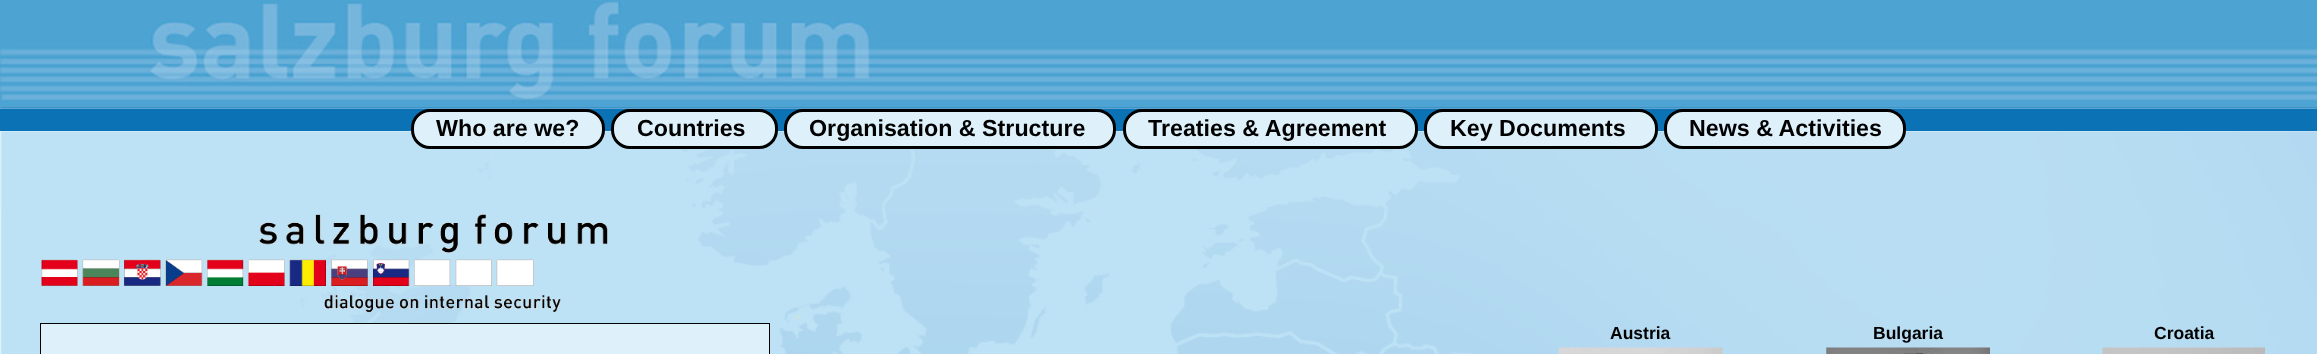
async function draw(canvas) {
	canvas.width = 2317;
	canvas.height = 354;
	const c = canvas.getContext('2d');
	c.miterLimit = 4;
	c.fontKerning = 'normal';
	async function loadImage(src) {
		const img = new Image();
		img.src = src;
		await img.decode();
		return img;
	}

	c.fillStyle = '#fff';
	c.fillRect(0, 0, 2317, 354);
	c.drawImage(await loadImage('img1.png'), 0, 0, 2317, 109);
	c.fillStyle = '#0b73b5';
	c.fillRect(0, 109, 2317, 22);
	c.drawImage(await loadImage('img2.png'), 0, 131, 2317, 223);
	c.fillStyle = '#def1fb';
	c.beginPath();
	c.roundRect(412.5, 110.5, 191, 37, 17.5);
	c.fill();
	c.strokeStyle = '#000';
	c.lineWidth = 3;
	c.stroke();
	c.font = 'bold 23.25px Liberation Sans';
	c.fillStyle = '#000';
	c.fillText('Who are we?', 436, 136);
	c.fillStyle = '#def1fb';
	c.beginPath();
	c.roundRect(612.5, 110.5, 164, 37, 17.5);
	c.fill();
	c.stroke();
	c.fillStyle = '#000';
	c.fillText('Countries', 637, 136);
	c.fillStyle = '#def1fb';
	c.beginPath();
	c.roundRect(785.5, 110.5, 329, 37, 17.5);
	c.fill();
	c.stroke();
	c.fillStyle = '#000';
	c.fillText('Organisation & Structure', 809, 136);
	c.fillStyle = '#def1fb';
	c.beginPath();
	c.roundRect(1124.5, 110.5, 292, 37, 17.5);
	c.fill();
	c.stroke();
	c.fillStyle = '#000';
	c.fillText('Treaties & Agreement', 1148, 136);
	c.fillStyle = '#def1fb';
	c.beginPath();
	c.roundRect(1425.5, 110.5, 231, 37, 17.5);
	c.fill();
	c.stroke();
	c.fillStyle = '#000';
	c.fillText('Key Documents', 1450, 136);
	c.fillStyle = '#def1fb';
	c.beginPath();
	c.roundRect(1665.5, 110.5, 239, 37, 17.5);
	c.fill();
	c.stroke();
	c.fillStyle = '#000';
	c.fillText('News & Activities', 1689, 136);
	c.drawImage(await loadImage('img3.png'), 41, 214, 567, 99);
	c.lineWidth = 1;
	c.strokeRect(40.5, 323.5, 729, 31);
	c.fillStyle = '#def1fb';
	c.fillRect(41, 324, 728, 30);
	c.font = 'bold 17.5px Liberation Sans';
	c.fillStyle = '#000';
	c.fillText('Austria', 1610, 339);
	c.drawImage(await loadImage('img4.png'), 1558, 347, 165, 7);
	c.fillText('Bulgaria', 1873, 339);
	c.drawImage(await loadImage('img5.png'), 1826, 347, 164, 7);
	c.fillText('Croatia', 2154, 339);
	c.drawImage(await loadImage('img6.png'), 2102, 347, 163, 7);
}

draw(document.querySelector('canvas'));
